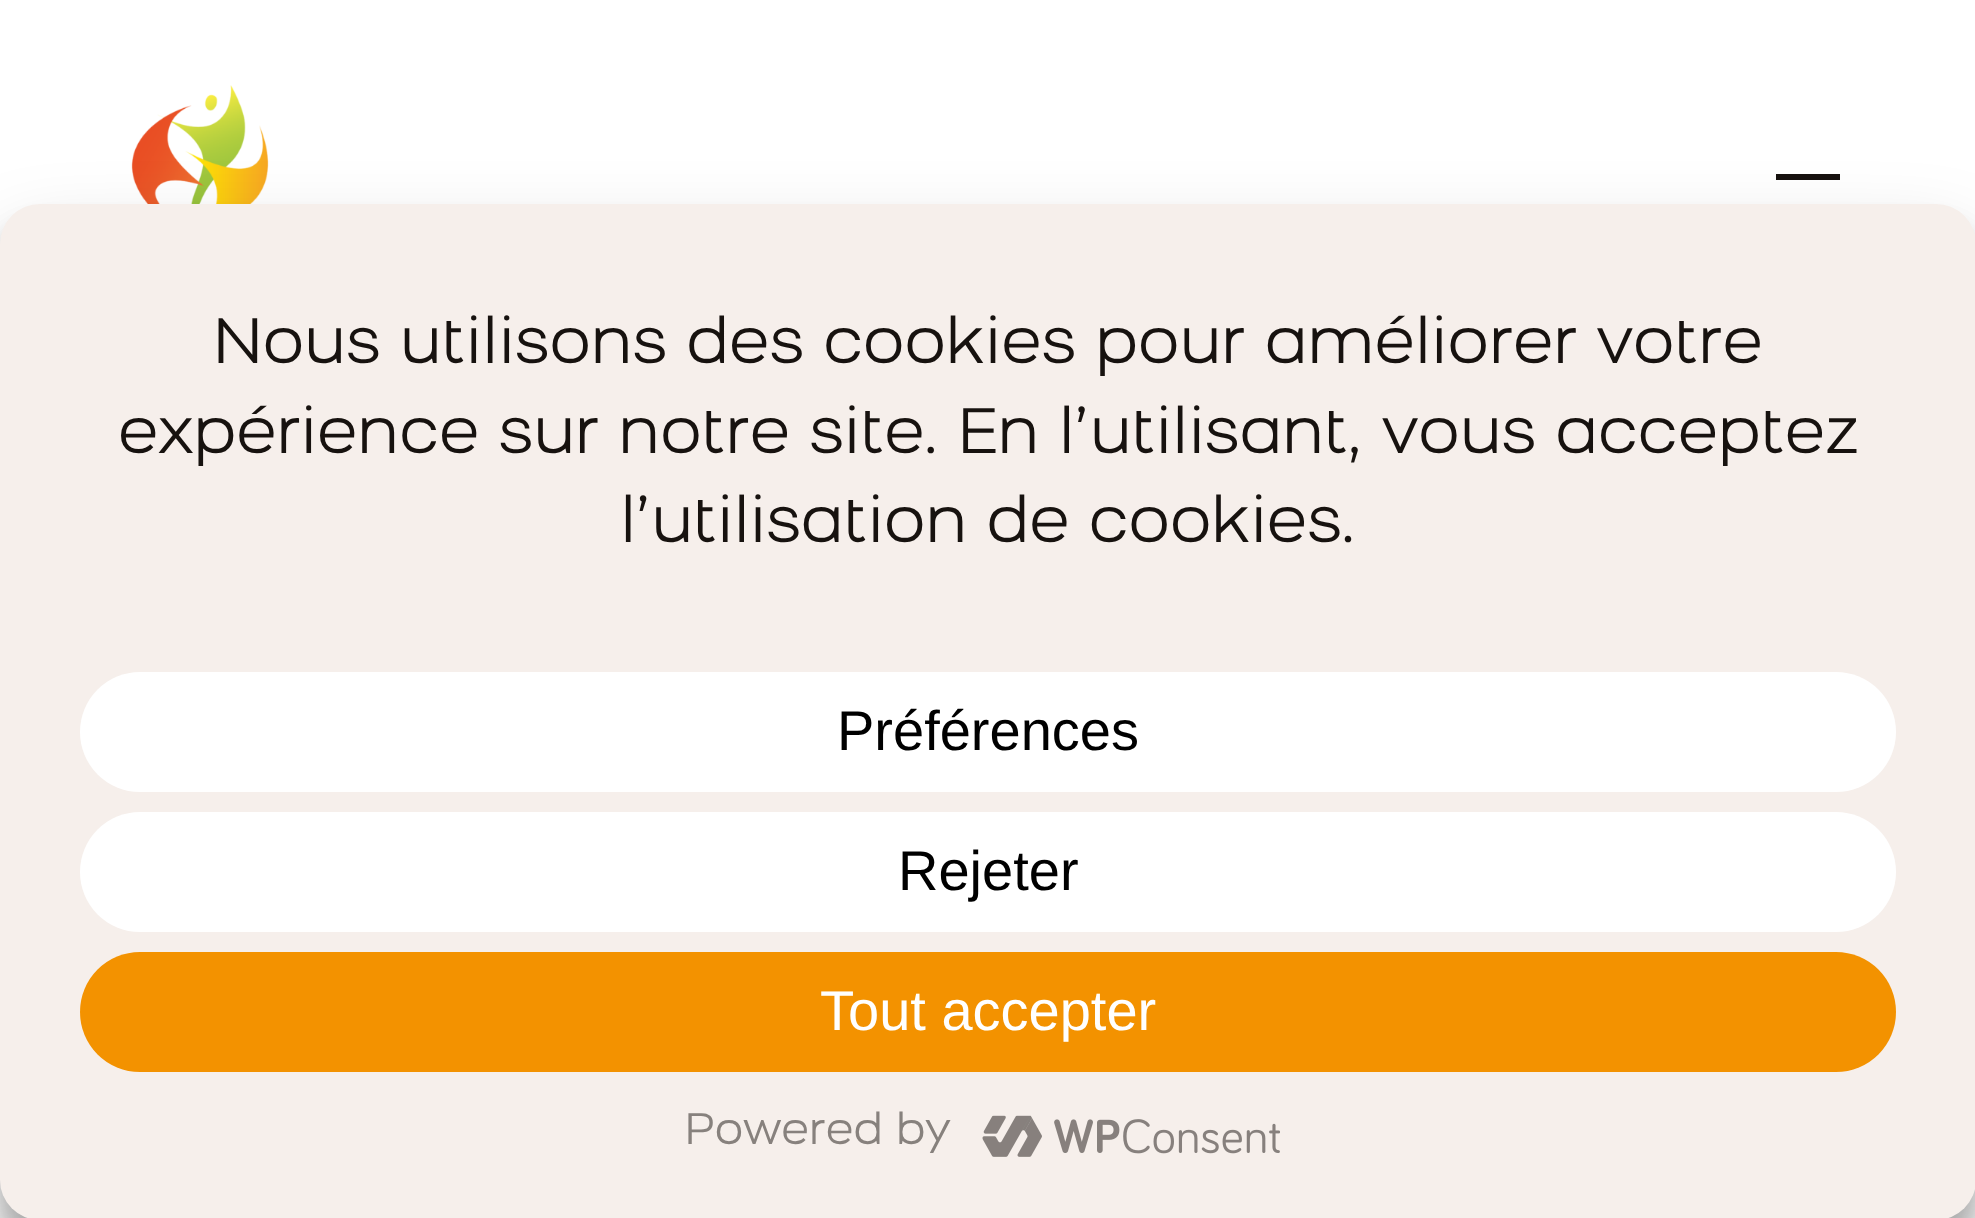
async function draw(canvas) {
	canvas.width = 1975;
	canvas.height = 1218;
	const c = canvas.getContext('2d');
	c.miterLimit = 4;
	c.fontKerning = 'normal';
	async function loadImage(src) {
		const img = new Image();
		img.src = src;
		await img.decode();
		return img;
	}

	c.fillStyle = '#fff';
	c.fillRect(0, 0, 1975, 1218);
	c.drawImage(await loadImage('img1.png'), 131, 85, 138, 119);
	c.fillStyle = '#17120f';
	c.fillRect(1776, 174, 64, 6);
	c.fillStyle = '#0000003b';
	c.filter = 'blur(12px)';
	c.beginPath();
	c.roundRect(0, 228, 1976, 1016, 40);
	c.fill();
	c.filter = 'none';
	c.fillStyle = '#00000030';
	c.filter = 'blur(40px)';
	c.beginPath();
	c.roundRect(0, 244, 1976, 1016, 40);
	c.fill();
	c.filter = 'none';
	c.fillStyle = '#f6efeb';
	c.beginPath();
	c.roundRect(0, 204, 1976, 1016, 40);
	c.fill();
	c.font = '64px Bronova';
	c.fillStyle = '#17120f';
	for (const [text, x, y] of [
		['Nous utilisons des cookies pour améliorer votre', 213, 363],
		['expérience sur notre site. En l’utilisant, vous acceptez', 118, 453],
		['l’utilisation de cookies.', 620, 542],
	]) {
		c.fillText(text, x, y);
	}
	c.fillStyle = '#fff';
	c.beginPath();
	c.roundRect(80, 672, 1816, 120, 60);
	c.fill();
	c.font = '56px Liberation Sans';
	c.fillStyle = '#000';
	c.fillText('Préférences', 837, 750);
	c.fillStyle = '#fff';
	c.beginPath();
	c.roundRect(80, 812, 1816, 120, 60);
	c.fill();
	c.fillStyle = '#000';
	c.fillText('Rejeter', 898, 890);
	c.fillStyle = '#f39200';
	c.beginPath();
	c.roundRect(80, 952, 1816, 120, 60);
	c.fill();
	c.fillStyle = '#fff';
	c.fillText('Tout accepter', 820, 1030);
	c.font = '44px Bronova';
	c.fillStyle = '#87817d';
	c.fillText('Powered by', 685, 1144);
	c.drawImage(await loadImage('img2.png'), 982, 1115, 298, 42);
}

draw(document.querySelector('canvas'));
